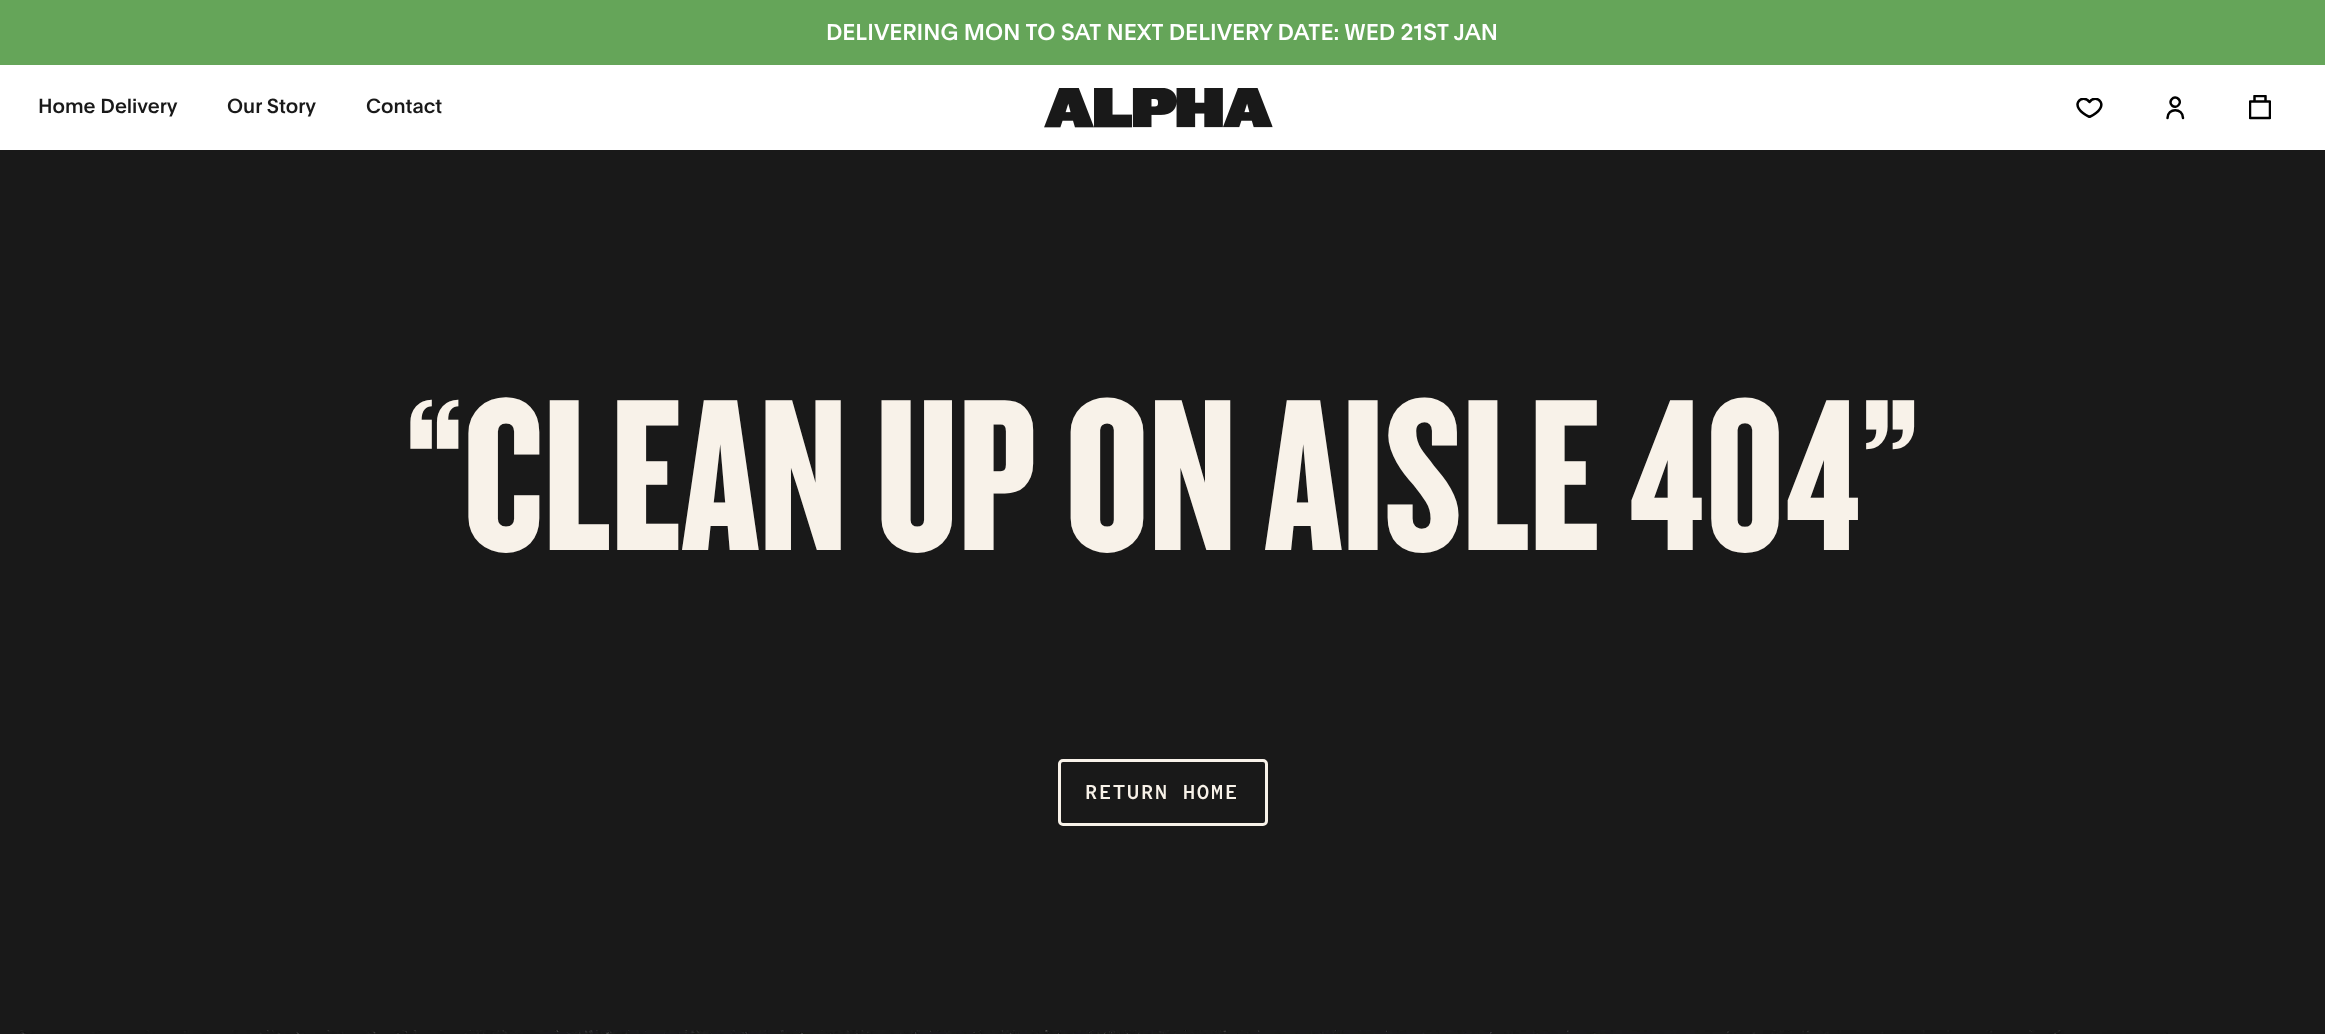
async function draw(canvas) {
	canvas.width = 2325;
	canvas.height = 1034;
	const c = canvas.getContext('2d');
	c.miterLimit = 4;
	c.fontKerning = 'normal';
	async function loadImage(src) {
		const img = new Image();
		img.src = src;
		await img.decode();
		return img;
	}

	c.fillStyle = '#191919';
	c.fillRect(0, 0, 2325, 1034);
	c.fillStyle = '#65a559';
	c.fillRect(0, 0, 2325, 65);
	c.font = '500 22.5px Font';
	c.fillStyle = '#fff';
	c.fillText('DELIVERING MON TO SAT NEXT DELIVERY DATE: WED 21ST JAN', 826, 40);
	c.fillRect(0, 65, 2325, 85);
	c.font = '500 20px Font';
	c.fillStyle = '#191919';
	for (const [text, x, y] of [
		['Home Delivery', 38, 113],
		['Our Story', 227, 113],
		['Contact', 366, 113],
	]) {
		c.fillText(text, x, y);
	}
	c.drawImage(await loadImage('img1.png'), 1044, 88, 229, 40);
	c.save();
	c.beginPath();
	c.rect(2076, 98, 28, 20);
	c.clip();
	c.beginPath();
	c.moveTo(2089.5, 102);
	c.bezierCurveTo(2082.5, 92.5, 2066.5, 106, 2089.5, 117);
	c.bezierCurveTo(2112.5, 106, 2096, 92.5, 2089.5, 102);
	c.closePath();
	c.strokeStyle = '#000';
	c.lineWidth = 2.5;
	c.lineCap = 'round';
	c.lineJoin = 'round';
	c.stroke();
	c.restore();
	c.beginPath();
	c.moveTo(2167.5, 118);
	c.bezierCurveTo(2167.5, 107.5, 2183, 107.5, 2183, 118);
	c.moveTo(2178.5, 99);
	c.bezierCurveTo(2182.5, 103, 2176.5, 109.5, 2172, 105.5);
	c.bezierCurveTo(2167.5, 101.5, 2174, 94.5, 2178.5, 99);
	c.closePath();
	c.strokeStyle = '#000';
	c.lineWidth = 2.5;
	c.lineCap = 'round';
	c.lineJoin = 'round';
	c.stroke();
	c.save();
	c.beginPath();
	c.rect(2249, 95, 22, 25);
	c.clip();
	c.beginPath();
	c.moveTo(2250, 101.5);
	c.lineTo(2270, 101.5);
	c.lineTo(2270, 118);
	c.lineTo(2250, 118);
	c.closePath();
	c.moveTo(2254.5, 101.5);
	c.lineTo(2254.5, 96);
	c.lineTo(2265.5, 96);
	c.lineTo(2265.5, 101.5);
	c.stroke();
	c.restore();
	c.font = '225px "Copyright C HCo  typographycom"';
	c.fillStyle = '#f8f2e9';
	c.fillText('“CLEAN UP ON AISLE 404”', 405, 550);
	c.beginPath();
	c.roundRect(1059.5, 760.5, 207, 64, 3.5);
	c.strokeStyle = '#f8f2e9';
	c.lineWidth = 3;
	c.lineJoin = 'miter';
	c.stroke();
	c.letterSpacing = '2px';
	c.font = '500 20px Red Hat Mono';
	c.fillText('RETURN HOME', 1085, 799);
	c.drawImage(await loadImage('img2.png'), 20, 1030, 2148, 4);
}

draw(document.querySelector('canvas'));
